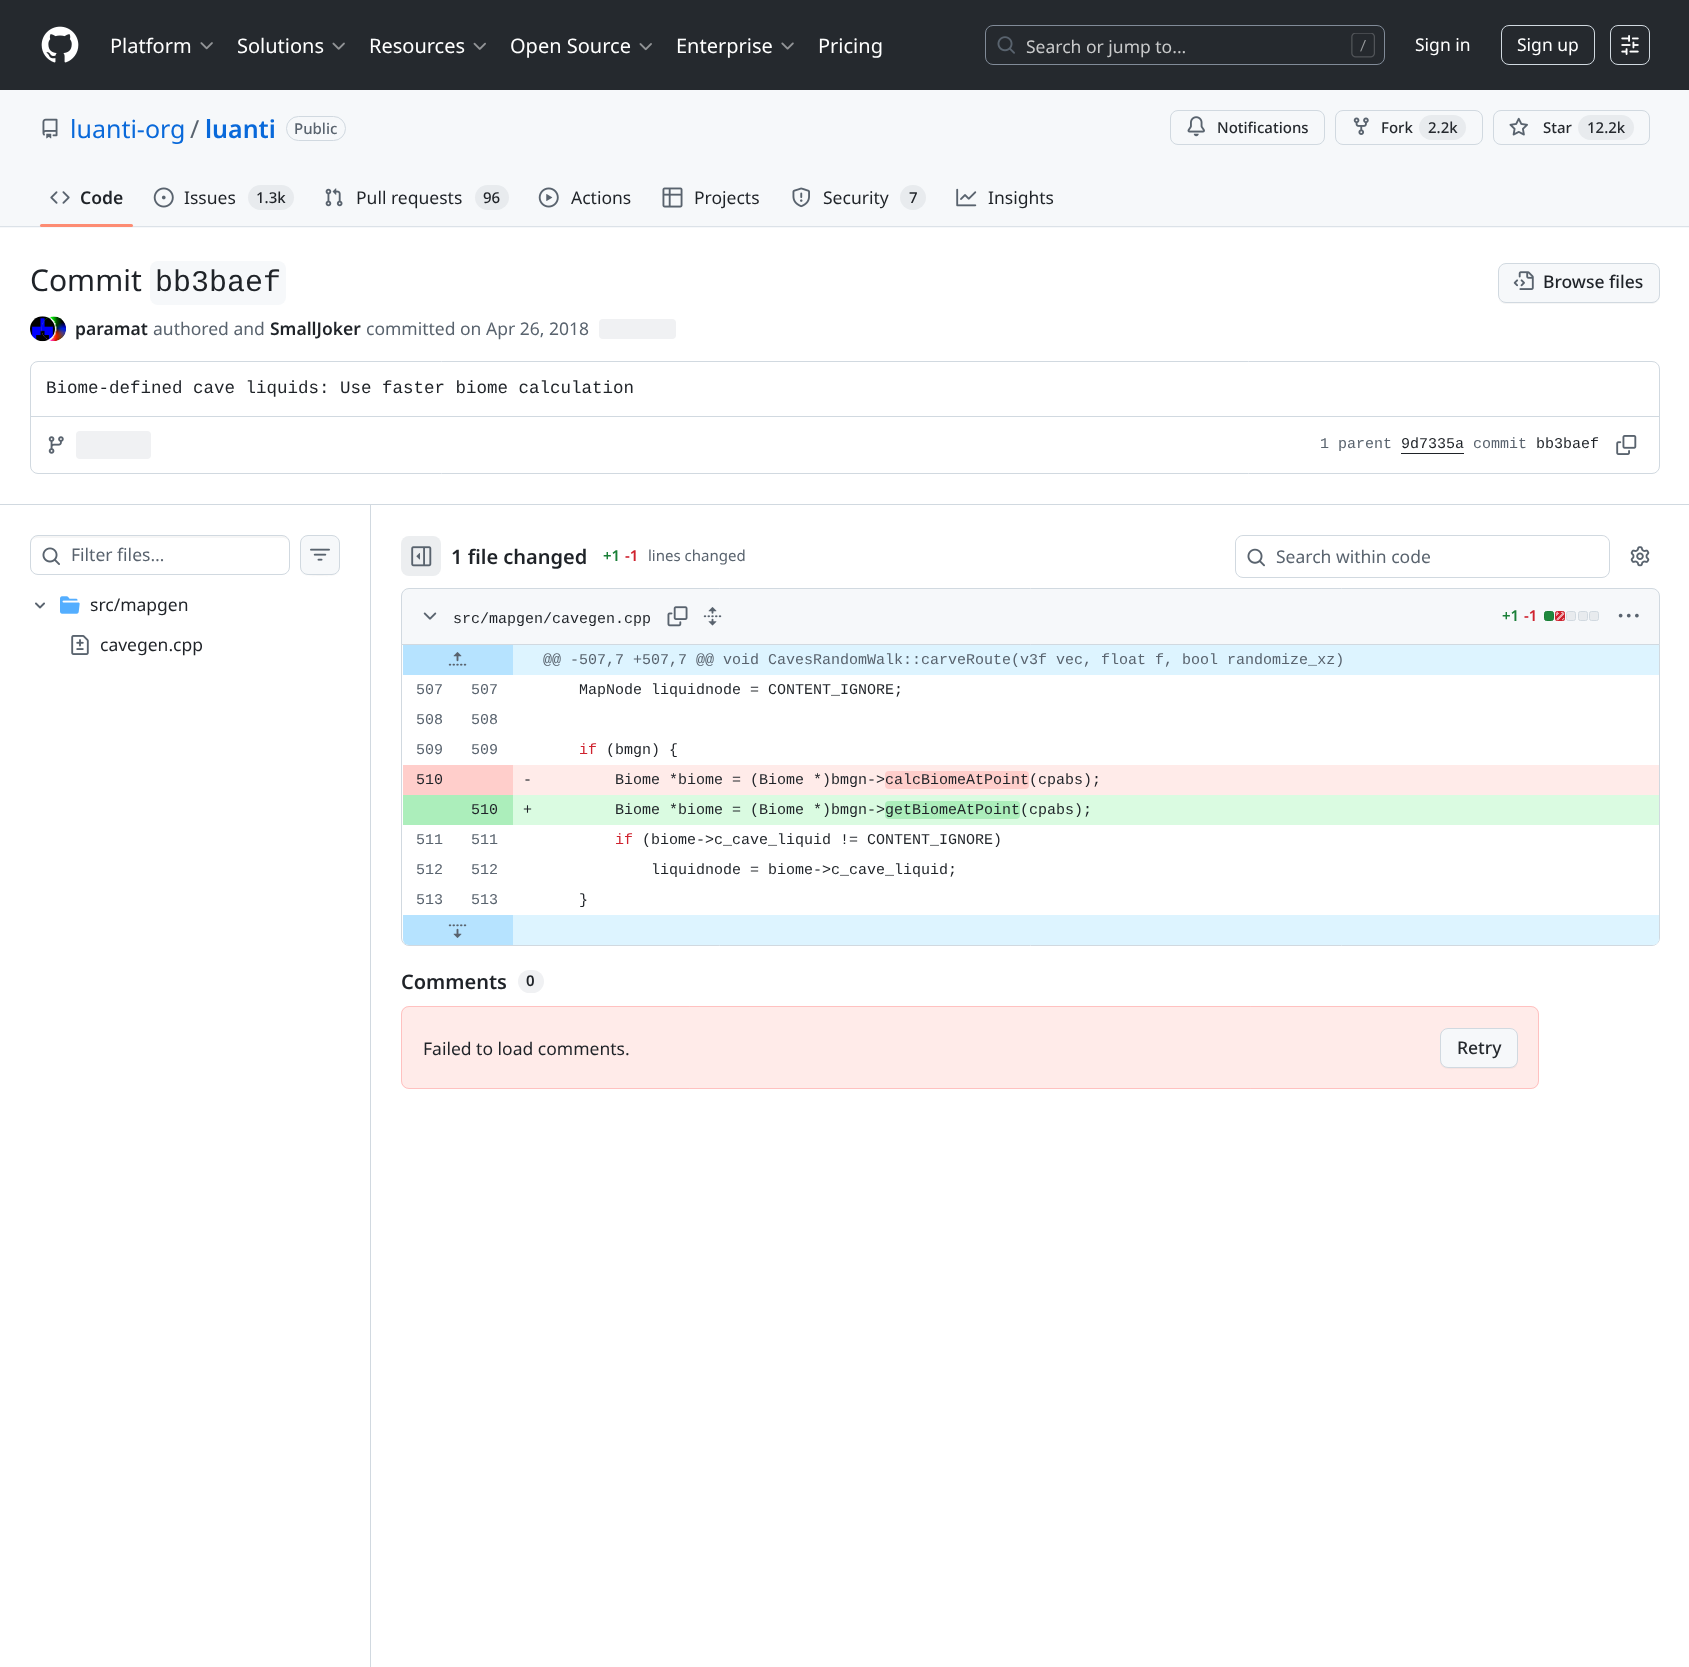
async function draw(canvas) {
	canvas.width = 1689;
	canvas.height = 1667;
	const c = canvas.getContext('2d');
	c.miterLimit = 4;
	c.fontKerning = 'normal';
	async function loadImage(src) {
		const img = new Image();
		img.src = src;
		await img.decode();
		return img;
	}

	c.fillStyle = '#fff';
	c.fillRect(0, 0, 1689, 1667);
	c.fillStyle = '#25292e';
	c.fillRect(0, 0, 1689, 90);
	c.drawImage(await loadImage('img1.png'), 41, 26, 38, 37);
	c.font = '20px Noto Sans';
	c.fillStyle = '#fff';
	c.fillText('Platform', 110, 53);
	c.drawImage(await loadImage('img2.png'), 200, 42, 13, 8);
	c.fillText('Solutions', 237, 53);
	c.drawImage(await loadImage('img3.png'), 332, 42, 13, 8);
	c.fillText('Resources', 369, 53);
	c.drawImage(await loadImage('img4.png'), 473, 42, 13, 8);
	c.fillText('Open Source', 510, 53);
	c.drawImage(await loadImage('img5.png'), 639, 43, 13, 8);
	c.fillText('Enterprise', 676, 53);
	c.drawImage(await loadImage('img6.png'), 781, 42, 13, 8);
	c.fillText('Pricing', 818, 53);
	c.beginPath();
	c.roundRect(985.5, 25.5, 399, 39, 7.5);
	c.strokeStyle = '#818b98';
	c.stroke();
	c.drawImage(await loadImage('img7.png'), 997, 36, 18, 18);
	c.font = '17.5px Noto Sans';
	c.fillStyle = '#c9cacb';
	c.fillText('Search or jump to...', 1026, 53);
	c.drawImage(await loadImage('img8.png'), 1351, 33, 24, 25);
	c.fillStyle = '#fff';
	c.fillText('Sign in', 1415, 51);
	c.beginPath();
	c.roundRect(1501.5, 25.5, 93, 39, 7.5);
	c.strokeStyle = '#d1d9e0';
	c.stroke();
	c.fillText('Sign up', 1517, 51);
	c.beginPath();
	c.roundRect(1610.5, 25.5, 39, 39, 7.5);
	c.stroke();
	c.drawImage(await loadImage('img9.png'), 1621, 35, 18, 20);
	c.fillStyle = '#f6f8fa';
	c.fillRect(0, 90, 1689, 138);
	c.drawImage(await loadImage('img10.png'), 42, 118, 16, 21);
	c.font = '25px Noto Sans';
	c.fillStyle = '#0969da';
	c.fillText('luanti-org', 70, 138);
	c.fillStyle = '#59636e';
	c.fillText('/', 190, 138);
	c.font = '600 25px Noto Sans';
	c.fillStyle = '#0969da';
	c.fillText('luanti', 205, 138);
	c.beginPath();
	c.roundRect(286.5, 116.5, 59, 24, 12);
	c.stroke();
	c.font = '500 15px Noto Sans';
	c.fillStyle = '#59636e';
	c.fillText('Public', 294, 134);
	c.beginPath();
	c.roundRect(1170.5, 110.5, 154, 34, 7.5);
	c.stroke();
	c.drawImage(await loadImage('img11.png'), 1187, 116, 18, 21);
	c.fillStyle = '#25292e';
	c.fillText('Notifications', 1217, 133);
	c.beginPath();
	c.roundRect(1335.5, 110.5, 147, 34, 7.5);
	c.stroke();
	c.drawImage(await loadImage('img12.png'), 1353, 117, 16, 18);
	c.fillText('Fork', 1381, 133);
	c.fillStyle = '#e8ebee';
	c.beginPath();
	c.roundRect(1419, 115, 47, 25, 12.5);
	c.fill();
	c.fillStyle = '#25292e';
	c.fillText('2.2k', 1428, 133);
	c.beginPath();
	c.roundRect(1493.5, 110.5, 156, 34, 7.5);
	c.stroke();
	c.drawImage(await loadImage('img13.png'), 1509, 117, 19, 19);
	c.fillText('Star', 1543, 133);
	c.fillStyle = '#e8ebee';
	c.beginPath();
	c.roundRect(1578, 115, 56, 25, 12.5);
	c.fill();
	c.fillStyle = '#25292e';
	c.fillText('12.2k', 1587, 133);
	c.fillStyle = '#dce2e8';
	c.fillRect(0, 226, 1689, 1);
	c.drawImage(await loadImage('img14.png'), 50, 191, 20, 13);
	c.font = '600 17.5px Noto Sans';
	c.fillStyle = '#1f2328';
	c.fillText('Code', 80, 204);
	c.fillStyle = '#fd8c73';
	c.beginPath();
	c.roundRect(40, 224, 93, 3, 1.5);
	c.fill();
	c.drawImage(await loadImage('img15.png'), 153, 187, 21, 21);
	c.font = '17.5px Noto Sans';
	c.fillStyle = '#1f2328';
	c.fillText('Issues', 184, 204);
	c.fillStyle = '#e8ebee';
	c.beginPath();
	c.roundRect(248, 185, 46, 25, 12.5);
	c.fill();
	c.font = '500 15px Noto Sans';
	c.fillStyle = '#1f2328';
	c.fillText('1.3k', 256, 203);
	c.drawImage(await loadImage('img16.png'), 325, 188, 18, 19);
	c.font = '17.5px Noto Sans';
	c.fillText('Pull requests', 356, 204);
	c.fillStyle = '#e8ebee';
	c.beginPath();
	c.roundRect(475, 185, 34, 25, 12.5);
	c.fill();
	c.font = '500 15px Noto Sans';
	c.fillStyle = '#1f2328';
	c.fillText('96', 483, 203);
	c.drawImage(await loadImage('img17.png'), 538, 187, 21, 21);
	c.font = '17.5px Noto Sans';
	c.fillText('Actions', 571, 204);
	c.drawImage(await loadImage('img18.png'), 662, 187, 21, 21);
	c.fillText('Projects', 694, 204);
	c.drawImage(await loadImage('img19.png'), 792, 187, 18, 21);
	c.fillText('Security', 823, 204);
	c.fillStyle = '#e8ebee';
	c.beginPath();
	c.roundRect(900, 185, 26, 25, 12.5);
	c.fill();
	c.font = '500 15px Noto Sans';
	c.fillStyle = '#1f2328';
	c.fillText('7', 909, 203);
	c.drawImage(await loadImage('img20.png'), 956, 188, 21, 19);
	c.font = '17.5px Noto Sans';
	c.fillText('Insights', 988, 204);
	c.font = '30px Noto Sans';
	c.fillText('Commit', 30, 291);
	c.fillStyle = '#f6f8fa';
	c.beginPath();
	c.roundRect(150, 261, 136, 44, 8);
	c.fill();
	c.font = '30px Liberation Mono';
	c.fillStyle = '#1f2328';
	c.fillText('bb3baef', 155, 291);
	c.fillStyle = '#f6f6f6';
	c.beginPath();
	c.moveTo(1498, 299);
	c.bezierCurveTo(1500, 302, 1503, 304, 1506, 304);
	c.lineTo(1652, 304);
	c.bezierCurveTo(1656, 304, 1660, 300, 1660, 296);
	c.lineTo(1660, 295);
	c.bezierCurveTo(1660, 299, 1657, 302, 1652, 302);
	c.lineTo(1505, 302);
	c.bezierCurveTo(1502, 302, 1500, 301, 1498, 299);
	c.closePath();
	c.fill();
	c.fillStyle = '#f6f8fa';
	c.beginPath();
	c.roundRect(1498.5, 263.5, 161, 39, 7.5);
	c.fill();
	c.stroke();
	c.drawImage(await loadImage('img21.png'), 1513, 271, 21, 19);
	c.font = '500 17.5px Noto Sans';
	c.fillStyle = '#1f2328';
	c.fillText('Browse files', 1543, 288);
	c.drawImage(await loadImage('img22.png'), 30, 316, 25, 26);
	c.drawImage(await loadImage('img23.png'), 41, 316, 25, 25);
	c.font = '600 17.5px Noto Sans';
	c.fillText('paramat', 75, 335);
	c.font = '17.5px Noto Sans';
	c.fillStyle = '#59636e';
	c.fillText('authored and', 153, 335);
	c.font = '600 17.5px Noto Sans';
	c.fillStyle = '#1f2328';
	c.fillText('SmallJoker', 270, 335);
	c.font = '17.5px Noto Sans';
	c.fillStyle = '#59636e';
	c.fillText('committed', 366, 335);
	c.fillText('on Apr 26, 2018', 460, 335);
	c.fillStyle = '#f0f1f3';
	c.beginPath();
	c.roundRect(599, 319, 77, 20, 4);
	c.fill();
	c.beginPath();
	c.roundRect(30.5, 361.5, 1629, 112, 7.5);
	c.stroke();
	c.fillStyle = '#d1d9e0';
	c.fillRect(31, 416, 1628, 1);
	c.font = '17.5px Liberation Mono';
	c.fillStyle = '#1f2328';
	c.fillText('Biome-defined cave liquids: Use faster biome calculation', 46, 393);
	c.drawImage(await loadImage('img24.png'), 48, 436, 16, 18);
	c.fillStyle = '#f0f1f3';
	c.beginPath();
	c.roundRect(76, 431, 75, 28, 4);
	c.fill();
	c.font = '15px Liberation Mono';
	c.fillStyle = '#59636e';
	c.fillText('1 parent', 1320, 448);
	c.fillStyle = '#1f2328';
	c.fillText('9d7335a', 1401, 448);
	c.fillRect(1401, 453, 63, 1);
	c.fillStyle = '#59636e';
	c.fillText('commit', 1473, 448);
	c.fillStyle = '#1f2328';
	c.fillText('bb3baef', 1536, 448);
	c.drawImage(await loadImage('img25.png'), 1616, 435, 21, 20);
	c.fillStyle = '#d1d9e0';
	c.fillRect(0, 504, 1689, 1);
	c.fillStyle = '#f6f6f6';
	c.beginPath();
	c.moveTo(38, 538);
	c.lineTo(282, 538);
	c.bezierCurveTo(286, 538, 289, 540, 289, 544);
	c.bezierCurveTo(289, 541, 288, 537, 284, 536);
	c.lineTo(37, 536);
	c.bezierCurveTo(32, 536, 31, 540, 31, 544);
	c.bezierCurveTo(31, 540, 34, 538, 38, 538);
	c.closePath();
	c.fill();
	c.beginPath();
	c.roundRect(30.5, 535.5, 259, 39, 7.5);
	c.stroke();
	c.drawImage(await loadImage('img26.png'), 42, 547, 18, 18);
	c.font = '17.5px Noto Sans';
	c.fillStyle = '#59636e';
	c.fillText('Filter files…', 71, 561);
	c.fillStyle = '#f6f6f6';
	c.beginPath();
	c.moveTo(300, 568);
	c.bezierCurveTo(300, 578, 313, 576, 320, 576);
	c.bezierCurveTo(327, 576, 340, 578, 340, 568);
	c.bezierCurveTo(340, 578, 326, 575, 320, 575);
	c.bezierCurveTo(314, 575, 300, 578, 300, 568);
	c.closePath();
	c.fill();
	c.fillStyle = '#f6f8fa';
	c.beginPath();
	c.roundRect(300.5, 535.5, 39, 39, 7.5);
	c.fill();
	c.stroke();
	c.drawImage(await loadImage('img27.png'), 310, 548, 20, 13);
	c.drawImage(await loadImage('img28.png'), 35, 602, 10, 7);
	c.drawImage(await loadImage('img29.png'), 60, 596, 20, 18);
	c.fillStyle = '#1f2328';
	c.fillText('src/mapgen', 90, 611);
	c.drawImage(await loadImage('img30.png'), 71, 635, 18, 20);
	c.fillText('cavegen.cpp', 100, 651);
	c.fillStyle = '#d1d9e0';
	c.fillRect(370, 505, 1, 1162);
	c.fillStyle = '#eceef0';
	c.beginPath();
	c.roundRect(401, 536, 40, 40, 8);
	c.fill();
	c.drawImage(await loadImage('img31.png'), 411, 546, 21, 21);
	c.font = '600 20px Noto Sans';
	c.fillStyle = '#1f2328';
	c.fillText('1 file changed', 451, 564);
	c.font = '600 15px Noto Sans';
	c.fillStyle = '#1a7f37';
	c.fillText('+1', 603, 561);
	c.fillStyle = '#cf222e';
	c.fillText('-1', 625, 561);
	c.font = '15px Noto Sans';
	c.fillStyle = '#59636e';
	c.fillText('lines changed', 648, 561);
	c.fillStyle = '#f6f6f6';
	c.beginPath();
	c.moveTo(1242, 538);
	c.lineTo(1602, 538);
	c.bezierCurveTo(1606, 538, 1609, 540, 1609, 544);
	c.lineTo(1609, 542);
	c.bezierCurveTo(1609, 539, 1606, 536, 1603, 536);
	c.lineTo(1242, 536);
	c.bezierCurveTo(1239, 536, 1236, 539, 1236, 542);
	c.lineTo(1236, 544);
	c.bezierCurveTo(1236, 540, 1239, 538, 1242, 538);
	c.closePath();
	c.fill();
	c.beginPath();
	c.roundRect(1235.5, 535.5, 374, 42, 7.5);
	c.stroke();
	c.fillStyle = '#fff';
	c.beginPath();
	c.roundRect(1236, 536, 373, 40, 8);
	c.fill();
	c.drawImage(await loadImage('img32.png'), 1247, 548, 18, 19);
	c.font = '17.5px Noto Sans';
	c.fillStyle = '#59636e';
	c.fillText('Search within code', 1276, 563);
	c.drawImage(await loadImage('img33.png'), 1630, 546, 20, 21);
	c.beginPath();
	c.roundRect(401.5, 644.5, 1258, 301, [0, 0, 7.5, 7.5]);
	c.stroke();
	c.fillStyle = '#f6f8fa';
	c.beginPath();
	c.roundRect(401.5, 588.5, 1258, 56, [7.5, 7.5, 0, 0]);
	c.fill();
	c.stroke();
	c.drawImage(await loadImage('img34.png'), 423, 612, 14, 8);
	c.font = '15px Liberation Mono';
	c.fillStyle = '#1f2328';
	c.fillText('src/mapgen/cavegen.cpp', 453, 623);
	c.drawImage(await loadImage('img35.png'), 667, 606, 21, 21);
	c.drawImage(await loadImage('img36.png'), 703, 607, 19, 19);
	c.font = '600 15px Noto Sans';
	c.fillStyle = '#1a7f37';
	c.fillText('+1', 1502, 621);
	c.fillStyle = '#cf222e';
	c.fillText('-1', 1524, 621);
	c.fillStyle = '#1f883d';
	c.beginPath();
	c.roundRect(1544.5, 611.5, 9, 9, 2);
	c.fill();
	c.strokeStyle = '#1a7f37';
	c.stroke();
	c.fillStyle = '#cf222e';
	c.beginPath();
	c.roundRect(1555, 611, 10, 10, 2.5);
	c.fill();
	c.drawImage(await loadImage('img37.png'), 1555, 611, 10, 10);
	c.beginPath();
	c.roundRect(1555.5, 611.5, 9, 9, 2);
	c.strokeStyle = '#cf222e';
	c.stroke();
	c.fillStyle = '#e8ebee';
	c.beginPath();
	c.roundRect(1566.5, 611.5, 9, 9, 2);
	c.fill();
	c.strokeStyle = '#d1d9e0';
	c.stroke();
	c.beginPath();
	c.roundRect(1578.5, 611.5, 9, 9, 2);
	c.fill();
	c.stroke();
	c.beginPath();
	c.roundRect(1589.5, 611.5, 9, 9, 2);
	c.fill();
	c.stroke();
	c.drawImage(await loadImage('img38.png'), 1618, 613, 21, 5);
	c.fillStyle = '#ddf4ff';
	c.fillRect(513, 645, 1146, 30);
	c.fillStyle = '#b6e3ff';
	c.fillRect(403, 645, 110, 30);
	c.drawImage(await loadImage('img39.png'), 448, 652, 19, 14);
	c.font = '15px Liberation Mono';
	c.fillStyle = '#59636e';
	for (const [text, x, y] of [
		['@@ -507,7 +507,7 @@ void CavesRandomWalk::carveRoute(v3f vec, float f, bool randomize_xz)', 543, 664],
		['507', 416, 694],
		['507', 471, 694],
	]) {
		c.fillText(text, x, y);
	}
	c.fillStyle = '#1f2328';
	c.fillText('MapNode liquidnode = CONTENT_IGNORE;', 579, 694);
	c.fillStyle = '#59636e';
	for (const [text, x, y] of [
		['508', 416, 724],
		['508', 471, 724],
		['509', 416, 754],
		['509', 471, 754],
	]) {
		c.fillText(text, x, y);
	}
	c.fillStyle = '#cf222e';
	c.fillText('if', 579, 754);
	c.fillStyle = '#1f2328';
	c.fillText('(bmgn) {', 606, 754);
	c.fillStyle = '#ffcecb';
	c.fillRect(403, 765, 110, 30);
	c.fillStyle = '#1f2328';
	c.fillText('510', 416, 784);
	c.fillStyle = '#ffebe9';
	c.fillRect(513, 765, 1146, 30);
	c.fillStyle = '#1f2328';
	c.fillText('-', 523, 784);
	c.fillText('Biome *biome = (Biome *)bmgn->', 615, 784);
	c.fillStyle = '#ffcecb';
	c.beginPath();
	c.roundRect(885, 771, 144, 18, 4);
	c.fill();
	c.fillStyle = '#1f2328';
	c.fillText('calcBiomeAtPoint(cpabs);', 885, 784);
	c.fillStyle = '#aceebb';
	c.fillRect(403, 795, 110, 30);
	c.fillStyle = '#dafbe1';
	c.fillRect(513, 795, 1146, 30);
	c.fillStyle = '#1f2328';
	c.fillText('+', 523, 814);
	c.fillText('Biome *biome = (Biome *)bmgn->', 615, 814);
	c.fillStyle = '#aceebb';
	c.beginPath();
	c.roundRect(885, 801, 135, 18, 4);
	c.fill();
	c.fillStyle = '#1f2328';
	c.fillText('getBiomeAtPoint(cpabs);', 885, 814);
	c.fillText('510', 471, 814);
	c.fillStyle = '#59636e';
	c.fillText('511', 416, 844);
	c.fillText('511', 471, 844);
	c.fillStyle = '#cf222e';
	c.fillText('if', 615, 844);
	c.fillStyle = '#1f2328';
	c.fillText('(biome->c_cave_liquid != CONTENT_IGNORE)', 642, 844);
	c.fillStyle = '#59636e';
	c.fillText('512', 416, 874);
	c.fillText('512', 471, 874);
	c.fillStyle = '#1f2328';
	c.fillText('liquidnode = biome->c_cave_liquid;', 651, 874);
	c.fillStyle = '#59636e';
	c.fillText('513', 416, 904);
	c.fillText('513', 471, 904);
	c.fillStyle = '#1f2328';
	c.fillText('}', 579, 904);
	c.fillStyle = '#ddf4ff';
	c.beginPath();
	c.roundRect(403, 915, 1256, 30, [0, 0, 6, 6]);
	c.fill();
	c.fillStyle = '#b6e3ff';
	c.beginPath();
	c.roundRect(403, 915, 110, 30, [0, 0, 0, 6]);
	c.fill();
	c.drawImage(await loadImage('img40.png'), 448, 924, 19, 14);
	c.font = '600 20px Noto Sans';
	c.fillStyle = '#1f2328';
	c.fillText('Comments', 401, 989);
	c.fillStyle = '#f0f1f3';
	c.beginPath();
	c.roundRect(518, 970, 26, 23, 11.5);
	c.fill();
	c.font = '600 15px Noto Sans';
	c.fillStyle = '#1f2328';
	c.fillText('0', 526, 986);
	c.fillStyle = '#ffebe9';
	c.beginPath();
	c.roundRect(401, 1006, 1138, 83, 8);
	c.fill();
	c.beginPath();
	c.roundRect(401.5, 1006.5, 1137, 82, 7.5);
	c.strokeStyle = '#ff818266';
	c.stroke();
	c.font = '17.5px Noto Sans';
	c.fillStyle = '#1f2328';
	c.fillText('Failed to load comments.', 423, 1055);
	c.fillStyle = '#f6e3e1';
	c.beginPath();
	c.moveTo(1440, 1060);
	c.bezierCurveTo(1440, 1071, 1450, 1069, 1458, 1069);
	c.lineTo(1500, 1069);
	c.bezierCurveTo(1517, 1069, 1518, 1070, 1518, 1053);
	c.lineTo(1518, 1041);
	c.lineTo(1517, 1034);
	c.lineTo(1517, 1062);
	c.lineTo(1515, 1065);
	c.lineTo(1512, 1067);
	c.lineTo(1446, 1067);
	c.bezierCurveTo(1444, 1067, 1442, 1065, 1441, 1063);
	c.closePath();
	c.fill();
	c.fillStyle = '#f6f8fa';
	c.beginPath();
	c.roundRect(1440.5, 1028.5, 77, 39, 7.5);
	c.fill();
	c.strokeStyle = '#d1d9e0';
	c.stroke();
	c.font = '500 17.5px Noto Sans';
	c.fillStyle = '#25292e';
	c.fillText('Retry', 1457, 1054);
}

draw(document.querySelector('canvas'));
